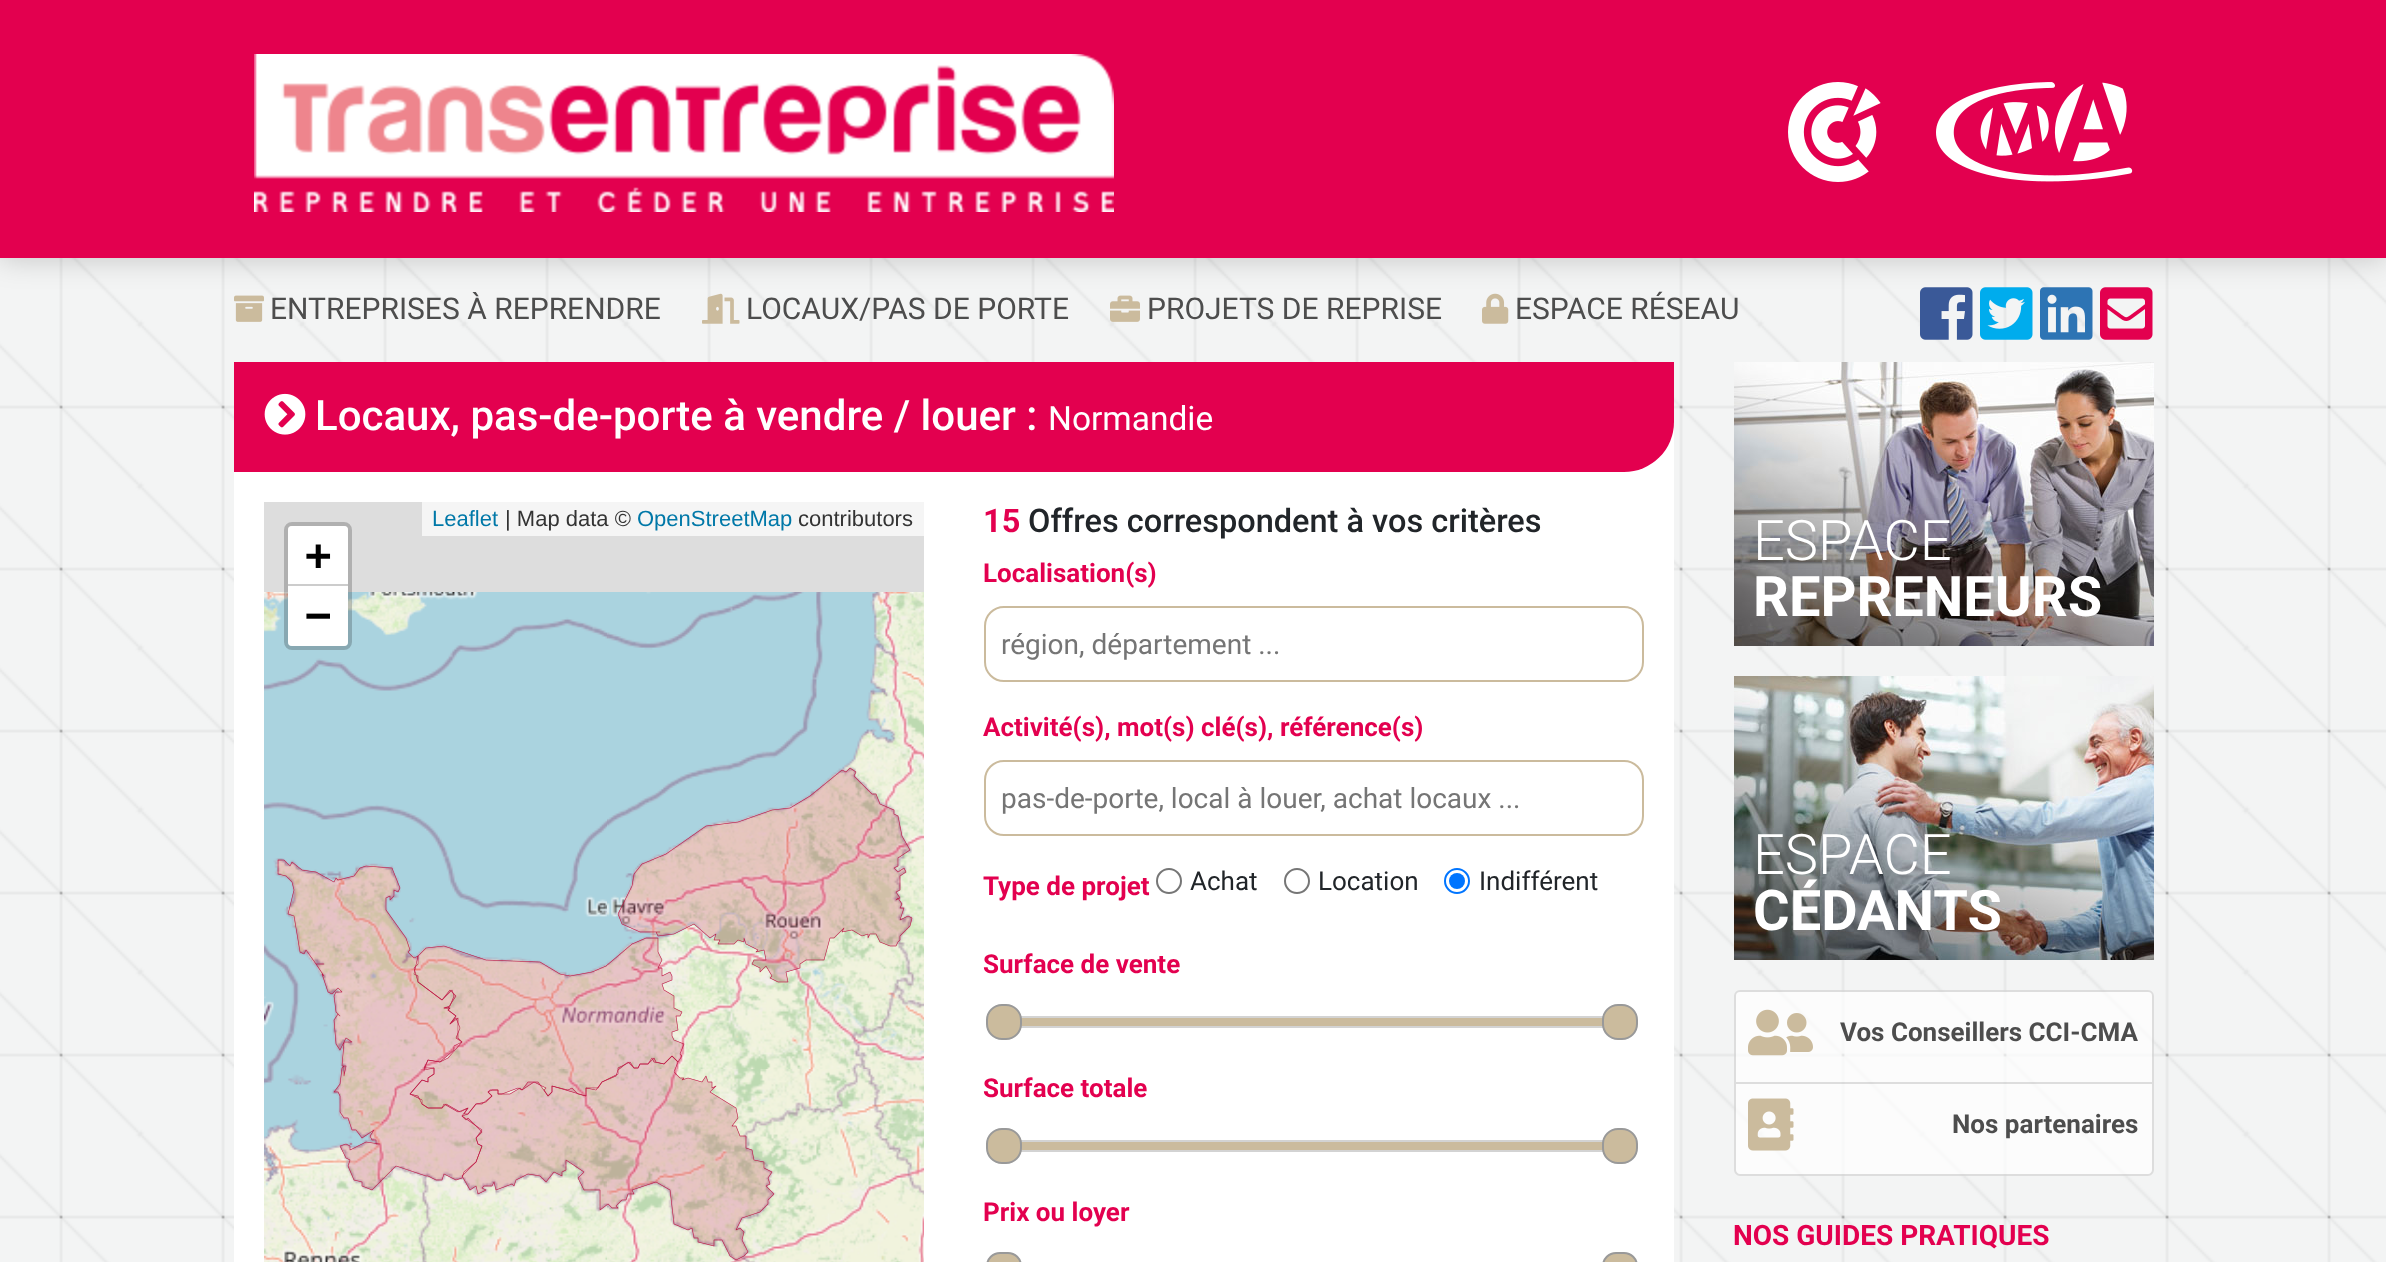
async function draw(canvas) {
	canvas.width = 2386;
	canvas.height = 1262;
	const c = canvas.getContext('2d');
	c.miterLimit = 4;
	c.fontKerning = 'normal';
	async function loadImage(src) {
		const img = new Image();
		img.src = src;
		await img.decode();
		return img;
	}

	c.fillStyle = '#fff';
	c.fillRect(0, 0, 2386, 1262);
	c.drawImage(await loadImage('img1.png'), 0, 258, 2386, 1004);
	c.drawImage(await loadImage('img5.png'), 234, 295, 30, 27);
	c.drawImage(await loadImage('img6.png'), 702, 293, 38, 31);
	c.drawImage(await loadImage('img7.png'), 1110, 295, 30, 27);
	c.drawImage(await loadImage('img8.png'), 1482, 293, 27, 31);
	c.drawImage(await loadImage('img9.png'), 1920, 287, 53, 53);
	c.drawImage(await loadImage('img10.png'), 1980, 287, 53, 53);
	c.drawImage(await loadImage('img11.png'), 2040, 287, 53, 53);
	c.drawImage(await loadImage('img12.png'), 2100, 287, 53, 53);
	c.fillStyle = '#00000033';
	c.filter = 'blur(15px)';
	c.beginPath();
	c.rect(0, 0, 2386, 258);
	c.fill();
	c.filter = 'none';
	c.fillStyle = '#e3004f';
	c.fillRect(0, 0, 2386, 258);
	c.drawImage(await loadImage('img2.png'), 254, 54, 860, 158);
	c.drawImage(await loadImage('img3.png'), 1788, 82, 93, 100);
	c.drawImage(await loadImage('img4.png'), 1936, 82, 197, 100);
	c.font = '30px Roboto';
	c.fillStyle = '#4d4d4d';
	for (const [text, x, y] of [
		['ENTREPRISES À REPRENDRE', 270, 319],
		['LOCAUX/PAS DE PORTE', 746, 319],
		['PROJETS DE REPRISE', 1147, 319],
		['ESPACE RÉSEAU', 1515, 319],
	]) {
		c.fillText(text, x, y);
	}
	c.fillStyle = '#fff';
	c.fillRect(234, 422, 1440, 840);
	c.fillStyle = '#e3004f';
	c.beginPath();
	c.roundRect(234, 362, 1440, 110, [0, 0, 50, 0]);
	c.fill();
	c.drawImage(await loadImage('img13.png'), 264, 393, 42, 42);
	c.font = '500 42px Roboto';
	c.fillStyle = '#fff';
	c.fillText('Locaux, pas-de-porte à vendre / louer :', 315, 430);
	c.font = '33.5px Roboto';
	c.fillText('Normandie', 1048, 430);
	c.fillStyle = '#ddd';
	c.fillRect(264, 502, 660, 90);
	c.fillStyle = '#f5f5f5';
	c.fillRect(422, 502, 502, 34);
	c.font = '22px Liberation Sans';
	c.fillStyle = '#0078a8';
	c.fillText('Leaflet', 432, 526);
	c.fillStyle = '#333';
	c.fillText('| Map data ©', 505, 526);
	c.fillStyle = '#0078a8';
	c.fillText('OpenStreetMap', 637, 526);
	c.fillStyle = '#333';
	c.fillText('contributors', 798, 526);
	c.drawImage(await loadImage('img14.png'), 264, 592, 343, 477);
	c.beginPath();
	c.roundRect(286, 524, 64, 124, 6);
	c.strokeStyle = '#00000033';
	c.lineWidth = 4;
	c.stroke();
	c.fillStyle = '#fff';
	c.beginPath();
	c.roundRect(288, 526, 60, 60, [4, 4, 0, 0]);
	c.fill();
	c.fillStyle = '#ccc';
	c.fillRect(288, 584, 60, 2);
	c.font = 'bold 44px DejaVu Sans Mono';
	c.fillStyle = '#000';
	c.fillText('+', 305, 570);
	c.fillStyle = '#fff';
	c.beginPath();
	c.roundRect(288, 586, 60, 60, [0, 0, 4, 4]);
	c.fill();
	c.fillStyle = '#000';
	c.fillText('−', 305, 630);
	c.drawImage(await loadImage('img15.png'), 607, 592, 317, 477);
	c.drawImage(await loadImage('img16.png'), 264, 1069, 343, 193);
	c.drawImage(await loadImage('img17.png'), 607, 1069, 317, 193);
	c.drawImage(await loadImage('img18.png'), 277, 767, 636, 494);
	c.font = 'bold 32.5px Roboto';
	c.fillStyle = '#e3004f';
	c.fillText('15', 983, 532);
	c.font = '500 32.5px Roboto';
	c.fillStyle = '#212529';
	c.fillText('Offres correspondent à vos critères', 1028, 532);
	c.font = 'bold 26px Roboto';
	c.fillStyle = '#e3004f';
	c.fillText('Localisation(s)', 983, 582);
	c.beginPath();
	c.roundRect(985, 607, 658, 74, 19);
	c.strokeStyle = '#cbbb9d';
	c.lineWidth = 2;
	c.stroke();
	c.font = '28px Roboto';
	c.fillStyle = '#757575';
	c.fillText('région, département ...', 1001, 654);
	c.font = 'bold 26px Roboto';
	c.fillStyle = '#e3004f';
	c.fillText('Activité(s), mot(s) clé(s), référence(s)', 983, 736);
	c.beginPath();
	c.roundRect(985, 761, 658, 74, 19);
	c.stroke();
	c.font = '28px Roboto';
	c.fillStyle = '#757575';
	c.fillText('pas-de-porte, local à louer, achat locaux ...', 1001, 808);
	c.font = 'bold 26px Roboto';
	c.fillStyle = '#e3004f';
	c.fillText('Type de projet', 983, 895);
	c.beginPath();
	c.arc(1169, 881, 12, 0, 2 * Math.PI);
	c.strokeStyle = '#767676';
	c.stroke();
	c.font = '26px Roboto';
	c.fillStyle = '#212529';
	c.fillText('Achat', 1190, 890);
	c.beginPath();
	c.arc(1297, 881, 12, 0, 2 * Math.PI);
	c.stroke();
	c.fillText('Location', 1318, 890);
	c.beginPath();
	c.arc(1457, 881, 12, 0, 2 * Math.PI);
	c.strokeStyle = '#0075ff';
	c.stroke();
	c.fillStyle = '#0075ff';
	c.beginPath();
	c.arc(1457, 881, 8, 0, 2 * Math.PI);
	c.fill();
	c.fillStyle = '#212529';
	c.fillText('Indifférent', 1479, 890);
	c.font = 'bold 26px Roboto';
	c.fillStyle = '#e3004f';
	c.fillText('Surface de vente', 983, 973);
	c.strokeStyle = '#d3d3d3';
	c.strokeRect(1005, 1017, 618, 10);
	c.fillStyle = '#cbbb9d';
	c.fillRect(1021, 1018, 582, 8);
	c.beginPath();
	c.roundRect(987, 1005, 34, 34, 15);
	c.fill();
	c.strokeStyle = '#999';
	c.stroke();
	c.beginPath();
	c.roundRect(1603, 1005, 34, 34, 15);
	c.fill();
	c.stroke();
	c.fillStyle = '#e3004f';
	c.fillText('Surface totale', 983, 1097);
	c.strokeStyle = '#d3d3d3';
	c.strokeRect(1005, 1141, 618, 10);
	c.fillStyle = '#cbbb9d';
	c.fillRect(1021, 1142, 582, 8);
	c.beginPath();
	c.roundRect(987, 1129, 34, 34, 15);
	c.fill();
	c.strokeStyle = '#999';
	c.stroke();
	c.beginPath();
	c.roundRect(1603, 1129, 34, 34, 15);
	c.fill();
	c.stroke();
	c.fillStyle = '#e3004f';
	c.fillText('Prix ou loyer', 983, 1221);
	c.fillStyle = '#cbbb9d';
	c.beginPath();
	c.roundRect(987, 1253, 34, 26, 15);
	c.fill();
	c.stroke();
	c.beginPath();
	c.roundRect(1603, 1253, 34, 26, 15);
	c.fill();
	c.stroke();
	c.drawImage(await loadImage('img19.png'), 1734, 362, 420, 284);
	c.font = '300 56px Roboto';
	c.fillStyle = '#fff';
	c.fillText('ESPACE', 1753, 560);
	c.font = 'bold 56px Roboto';
	c.fillText('REPRENEURS', 1753, 616);
	c.drawImage(await loadImage('img20.png'), 1734, 676, 420, 284);
	c.font = '300 56px Roboto';
	c.fillText('ESPACE', 1753, 874);
	c.font = 'bold 56px Roboto';
	c.fillText('CÉDANTS', 1753, 930);
	c.fillStyle = '#ffffffb3';
	c.beginPath();
	c.roundRect(1734, 990, 420, 94, [6, 6, 0, 0]);
	c.fill();
	c.beginPath();
	c.roundRect(1735, 991, 418, 92, [5, 5, 0, 0]);
	c.strokeStyle = '#0000001f';
	c.stroke();
	c.drawImage(await loadImage('img21.png'), 1748, 1009, 65, 47);
	c.font = 'bold 26px Roboto';
	c.fillStyle = '#4d4d4d';
	c.fillText('Vos Conseillers CCI-CMA', 1840, 1041);
	c.fillStyle = '#ffffffb3';
	c.beginPath();
	c.roundRect(1734, 1084, 420, 92, [0, 0, 6, 6]);
	c.fill();
	c.fillStyle = '#0000001f';
	c.beginPath();
	c.moveTo(1734, 1084);
	c.lineTo(2154, 1084);
	c.lineTo(2154, 1170);
	c.bezierCurveTo(2154, 1173, 2151, 1176, 2148, 1176);
	c.lineTo(1740, 1176);
	c.bezierCurveTo(1737, 1176, 1734, 1173, 1734, 1170);
	c.closePath();
	c.moveTo(1736, 1084);
	c.lineTo(2152, 1084);
	c.lineTo(2152, 1170);
	c.bezierCurveTo(2152, 1172, 2150, 1174, 2148, 1174);
	c.lineTo(1740, 1174);
	c.bezierCurveTo(1738, 1174, 1736, 1172, 1736, 1170);
	c.closePath();
	c.fill('evenodd');
	c.drawImage(await loadImage('img22.png'), 1748, 1098, 46, 53);
	c.fillStyle = '#4d4d4d';
	c.fillText('Nos partenaires', 1952, 1133);
	c.font = 'bold 28px Roboto';
	c.fillStyle = '#e3004f';
	c.fillText('NOS GUIDES PRATIQUES', 1733, 1245);
}

draw(document.querySelector('canvas'));
